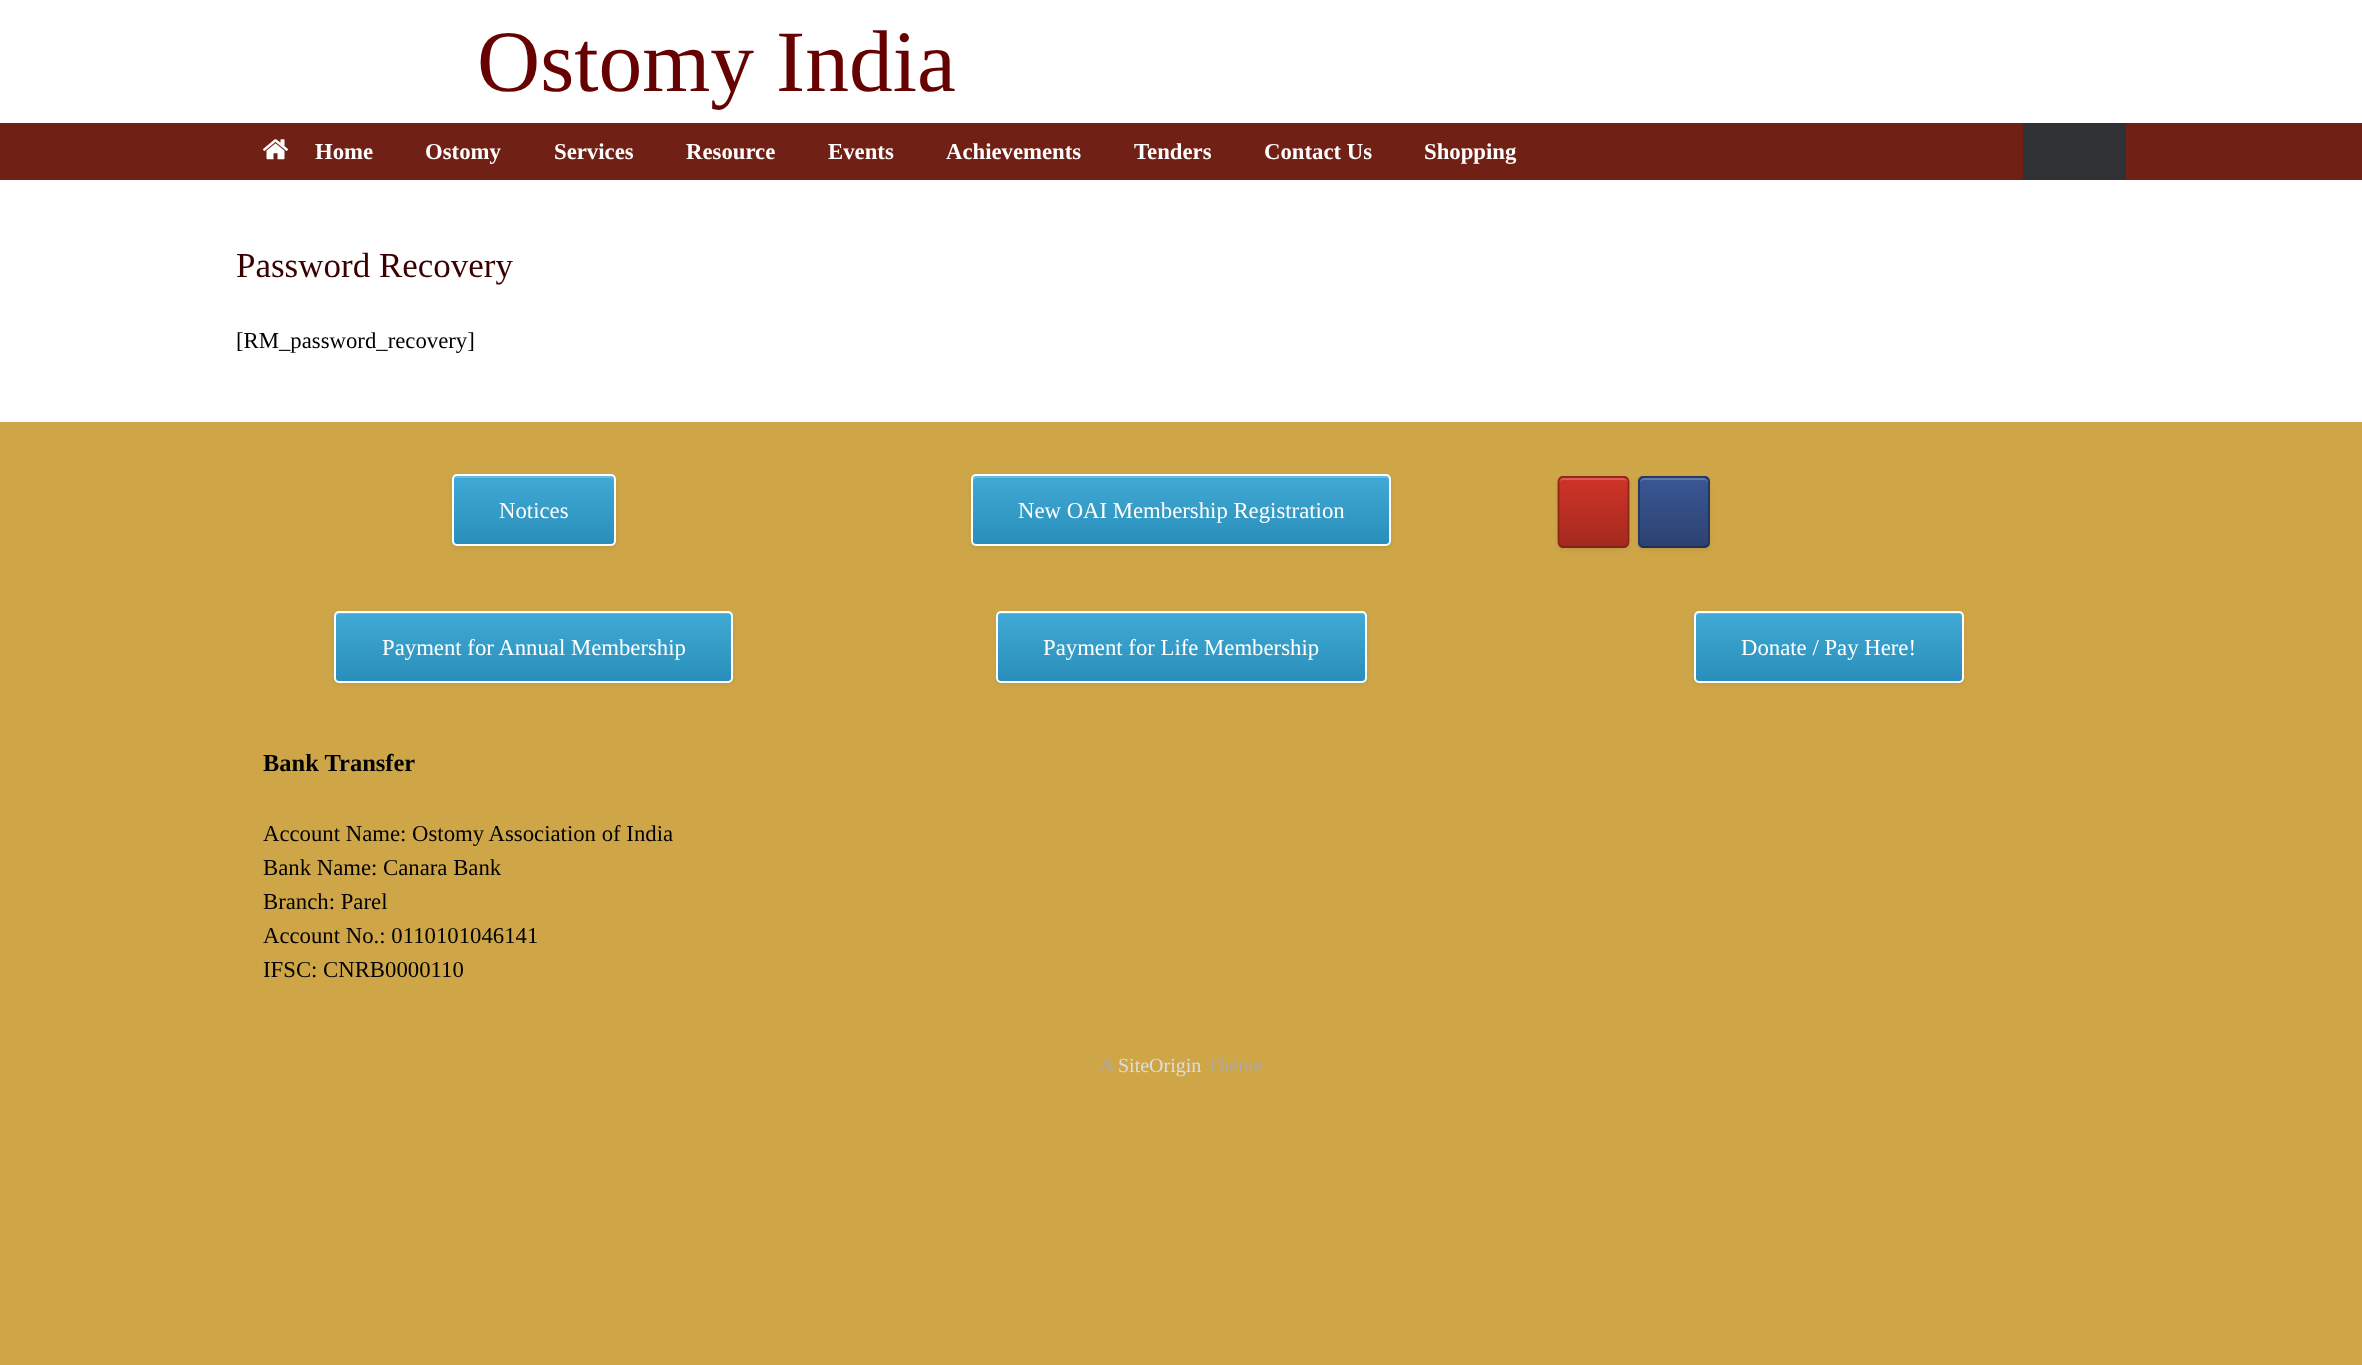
async function draw(canvas) {
	canvas.width = 2362;
	canvas.height = 1365;
	const c = canvas.getContext('2d');
	c.miterLimit = 4;
	c.fontKerning = 'normal';
	async function loadImage(src) {
		const img = new Image();
		img.src = src;
		await img.decode();
		return img;
	}
	let gradient;

	c.fillStyle = '#cea648';
	c.fillRect(0, 0, 2362, 1365);
	c.fillStyle = '#fff';
	c.fillRect(0, 0, 2362, 123);
	c.font = '87.5px Liberation Serif';
	c.fillStyle = '#660202';
	c.fillText('Ostomy India', 477, 91);
	c.fillStyle = '#702014';
	c.fillRect(0, 123, 2362, 57);
	c.drawImage(await loadImage('img1.png'), 262, 139, 27, 21);
	c.font = 'bold 22.75px Liberation Serif';
	c.fillStyle = '#fff';
	for (const [text, x, y] of [
		['Home', 315, 159],
		['Ostomy', 425, 159],
		['Services', 554, 159],
		['Resource', 686, 159],
		['Events', 828, 159],
		['Achievements', 946, 159],
		['Tenders', 1134, 159],
		['Contact Us', 1264, 159],
		['Shopping', 1424, 159],
	]) {
		c.fillText(text, x, y);
	}
	c.fillStyle = '#303134';
	c.fillRect(2023, 123, 103, 57);
	c.fillStyle = '#fff';
	c.fillRect(0, 180, 2362, 242);
	c.font = '35px Liberation Serif';
	c.fillStyle = '#3a0101';
	c.fillText('Password Recovery', 236, 277);
	c.font = '22.75px Liberation Serif';
	c.fillStyle = '#000';
	c.fillText('[RM_password_recovery]', 236, 348);
	c.fillStyle = '#00000012';
	c.filter = 'blur(2px)';
	c.beginPath();
	c.roundRect(452, 476, 164, 72, 5);
	c.fill();
	c.filter = 'none';
	c.save();
	c.beginPath();
	c.roundRect(452, 474, 164, 72, 5);
	c.clip();
	gradient = c.createLinearGradient(453, 544, 453, 476);
	gradient.addColorStop(0, '#298fba');
	gradient.addColorStop(1, '#41a9d5');
	c.fillStyle = gradient;
	c.fillRect(452, 476, 164, 68);
	c.restore();
	c.fillStyle = '#67badd';
	c.beginPath();
	c.moveTo(457, 478);
	c.lineTo(610, 478);
	c.bezierCurveTo(612, 478, 614, 480, 614, 482);
	c.lineTo(614, 480);
	c.bezierCurveTo(614, 478, 612, 476, 610, 476);
	c.lineTo(457, 476);
	c.bezierCurveTo(455, 476, 453, 478, 453, 480);
	c.lineTo(453, 482);
	c.bezierCurveTo(453, 480, 455, 478, 457, 478);
	c.closePath();
	c.fill();
	c.beginPath();
	c.roundRect(453, 475, 162, 70, 4);
	c.strokeStyle = '#fff';
	c.lineWidth = 2;
	c.stroke();
	c.fillStyle = '#fff';
	c.fillText('Notices', 499, 518);
	c.fillStyle = '#00000012';
	c.filter = 'blur(2px)';
	c.beginPath();
	c.roundRect(971, 476, 420, 72, 5);
	c.fill();
	c.filter = 'none';
	c.save();
	c.beginPath();
	c.roundRect(971, 474, 420, 72, 5);
	c.clip();
	gradient = c.createLinearGradient(973, 544, 973, 476);
	gradient.addColorStop(0, '#298fba');
	gradient.addColorStop(1, '#41a9d5');
	c.fillStyle = gradient;
	c.fillRect(971, 476, 420, 68);
	c.restore();
	c.fillStyle = '#67badd';
	c.beginPath();
	c.moveTo(977, 478);
	c.lineTo(1386, 478);
	c.bezierCurveTo(1388, 478, 1390, 480, 1390, 482);
	c.bezierCurveTo(1390, 479, 1390, 476, 1386, 476);
	c.lineTo(977, 476);
	c.bezierCurveTo(973, 476, 973, 479, 973, 482);
	c.bezierCurveTo(973, 480, 975, 478, 977, 478);
	c.closePath();
	c.fill();
	c.beginPath();
	c.roundRect(972, 475, 418, 70, 4);
	c.stroke();
	c.fillStyle = '#fff';
	c.fillText('New OAI Membership Registration', 1018, 518);
	c.fillStyle = '#00000012';
	c.filter = 'blur(2px)';
	c.beginPath();
	c.roundRect(1558, 478, 71, 72, 5);
	c.fill();
	c.filter = 'none';
	c.save();
	c.beginPath();
	c.roundRect(1558, 476, 71, 72, 5);
	c.clip();
	gradient = c.createLinearGradient(1559, 478, 1559, 410);
	gradient.addColorStop(0, '#a4291f');
	gradient.addColorStop(1, '#cf3427');
	c.fillStyle = gradient;
	c.fillRect(1558, 476, 71, 2);
	gradient = c.createLinearGradient(1559, 546, 1559, 478);
	gradient.addColorStop(0, '#a4291f');
	gradient.addColorStop(1, '#cf3427');
	c.fillStyle = gradient;
	c.fillRect(1558, 478, 71, 68);
	gradient = c.createLinearGradient(1559, 614, 1559, 546);
	gradient.addColorStop(0, '#a4291f');
	gradient.addColorStop(1, '#cf3427');
	c.fillStyle = gradient;
	c.fillRect(1558, 546, 71, 2);
	c.restore();
	c.fillStyle = '#d85d52';
	c.beginPath();
	c.moveTo(1563, 480);
	c.lineTo(1624, 480);
	c.bezierCurveTo(1626, 480, 1628, 481, 1628, 483);
	c.bezierCurveTo(1628, 476, 1619, 478, 1614, 478);
	c.lineTo(1573, 478);
	c.bezierCurveTo(1568, 478, 1559, 476, 1559, 483);
	c.bezierCurveTo(1559, 481, 1561, 480, 1563, 480);
	c.closePath();
	c.fill();
	c.beginPath();
	c.moveTo(1560, 478.5);
	c.bezierCurveTo(1560.5, 477.5, 1562, 477, 1563, 477);
	c.lineTo(1623.5, 477);
	c.bezierCurveTo(1625, 477, 1626, 477.5, 1627, 478.5);
	c.strokeStyle = '#97261c';
	c.lineWidth = 1.8;
	c.stroke();
	c.beginPath();
	c.moveTo(1627, 478.5);
	c.bezierCurveTo(1628, 479, 1628.5, 480.5, 1628.5, 481.5);
	c.lineTo(1628.5, 542);
	c.bezierCurveTo(1628.5, 543.5, 1628, 544.5, 1627, 545.5);
	c.strokeStyle = '#8f241b';
	c.stroke();
	c.beginPath();
	c.moveTo(1627, 545.5);
	c.bezierCurveTo(1626, 546.5, 1625, 547, 1623.5, 547);
	c.lineTo(1563, 547);
	c.bezierCurveTo(1562, 547, 1560.5, 546.5, 1560, 545.5);
	c.strokeStyle = '#822118';
	c.stroke();
	c.beginPath();
	c.moveTo(1560, 545.5);
	c.bezierCurveTo(1559, 544.5, 1558.5, 543.5, 1558.5, 542);
	c.lineTo(1558.5, 481.5);
	c.bezierCurveTo(1558.5, 480.5, 1559, 479, 1560, 478.5);
	c.strokeStyle = '#8f241b';
	c.stroke();
	c.fillStyle = '#00000012';
	c.filter = 'blur(2px)';
	c.beginPath();
	c.roundRect(1638, 478, 72, 72, 5);
	c.fill();
	c.filter = 'none';
	c.save();
	c.beginPath();
	c.roundRect(1638, 476, 72, 72, 5);
	c.clip();
	gradient = c.createLinearGradient(1640, 478, 1640, 410);
	gradient.addColorStop(0, '#2c4270');
	gradient.addColorStop(1, '#3a5795');
	c.fillStyle = gradient;
	c.fillRect(1638, 476, 72, 2);
	gradient = c.createLinearGradient(1640, 546, 1640, 478);
	gradient.addColorStop(0, '#2c4270');
	gradient.addColorStop(1, '#3a5795');
	c.fillStyle = gradient;
	c.fillRect(1638, 478, 72, 68);
	gradient = c.createLinearGradient(1640, 614, 1640, 546);
	gradient.addColorStop(0, '#2c4270');
	gradient.addColorStop(1, '#3a5795');
	c.fillStyle = gradient;
	c.fillRect(1638, 546, 72, 2);
	c.restore();
	c.fillStyle = '#6179aa';
	c.beginPath();
	c.moveTo(1644, 480);
	c.lineTo(1704, 480);
	c.bezierCurveTo(1706, 480, 1708, 481, 1708, 483);
	c.bezierCurveTo(1708, 476, 1699, 478, 1694, 478);
	c.lineTo(1654, 478);
	c.bezierCurveTo(1649, 478, 1640, 476, 1640, 483);
	c.bezierCurveTo(1640, 481, 1642, 480, 1644, 480);
	c.closePath();
	c.fill();
	c.beginPath();
	c.moveTo(1640.5, 478.5);
	c.bezierCurveTo(1641, 477.5, 1642.5, 477, 1643.5, 477);
	c.lineTo(1704, 477);
	c.bezierCurveTo(1705.5, 477, 1706.5, 477.5, 1707.5, 478.5);
	c.strokeStyle = '#273b65';
	c.stroke();
	c.beginPath();
	c.moveTo(1707.5, 478.5);
	c.bezierCurveTo(1708.5, 479, 1709, 480.5, 1709, 481.5);
	c.lineTo(1709, 542);
	c.bezierCurveTo(1709, 543.5, 1708.5, 544.5, 1707.5, 545.5);
	c.strokeStyle = '#25375e';
	c.stroke();
	c.beginPath();
	c.moveTo(1707.5, 545.5);
	c.bezierCurveTo(1706.5, 546.5, 1705.5, 547, 1704, 547);
	c.lineTo(1643.5, 547);
	c.bezierCurveTo(1642.5, 547, 1641, 546.5, 1640.5, 545.5);
	c.strokeStyle = '#203053';
	c.stroke();
	c.beginPath();
	c.moveTo(1640.5, 545.5);
	c.bezierCurveTo(1639.5, 544.5, 1639, 543.5, 1639, 542);
	c.lineTo(1639, 481.5);
	c.bezierCurveTo(1639, 480.5, 1639.5, 479, 1640.5, 478.5);
	c.strokeStyle = '#25375e';
	c.stroke();
	c.fillStyle = '#00000012';
	c.filter = 'blur(2px)';
	c.beginPath();
	c.roundRect(334, 613, 399, 71, 5);
	c.fill();
	c.filter = 'none';
	c.save();
	c.beginPath();
	c.roundRect(334, 611, 399, 72, 5);
	c.clip();
	gradient = c.createLinearGradient(336, 681, 336, 613);
	gradient.addColorStop(0, '#298fba');
	gradient.addColorStop(1, '#41a9d5');
	c.fillStyle = gradient;
	c.fillRect(334, 613, 399, 68);
	c.restore();
	c.fillStyle = '#67badd';
	c.beginPath();
	c.moveTo(340, 614);
	c.lineTo(728, 614);
	c.bezierCurveTo(730, 614, 732, 616, 732, 618);
	c.bezierCurveTo(732, 615, 731, 613, 728, 613);
	c.lineTo(340, 613);
	c.bezierCurveTo(337, 613, 336, 615, 336, 618);
	c.bezierCurveTo(336, 616, 338, 614, 340, 614);
	c.closePath();
	c.fill();
	c.beginPath();
	c.roundRect(335, 612, 397, 70, 4);
	c.strokeStyle = '#fff';
	c.lineWidth = 2;
	c.stroke();
	c.fillStyle = '#fff';
	c.fillText('Payment for Annual Membership', 382, 655);
	c.fillStyle = '#00000012';
	c.filter = 'blur(2px)';
	c.beginPath();
	c.roundRect(996, 613, 371, 71, 5);
	c.fill();
	c.filter = 'none';
	c.save();
	c.beginPath();
	c.roundRect(996, 611, 371, 72, 5);
	c.clip();
	gradient = c.createLinearGradient(998, 681, 998, 613);
	gradient.addColorStop(0, '#298fba');
	gradient.addColorStop(1, '#41a9d5');
	c.fillStyle = gradient;
	c.fillRect(996, 613, 371, 68);
	c.restore();
	c.fillStyle = '#67badd';
	c.beginPath();
	c.moveTo(1001, 614);
	c.lineTo(1361, 614);
	c.bezierCurveTo(1363, 614, 1365, 616, 1365, 618);
	c.bezierCurveTo(1365, 615, 1364, 613, 1361, 613);
	c.lineTo(1001, 613);
	c.lineTo(999, 615);
	c.lineTo(998, 618);
	c.bezierCurveTo(998, 616, 999, 614, 1001, 614);
	c.closePath();
	c.fill();
	c.beginPath();
	c.roundRect(997, 612, 369, 70, 4);
	c.stroke();
	c.fillStyle = '#fff';
	c.fillText('Payment for Life Membership', 1043, 655);
	c.fillStyle = '#00000012';
	c.filter = 'blur(2px)';
	c.beginPath();
	c.roundRect(1694, 613, 270, 71, 5);
	c.fill();
	c.filter = 'none';
	c.save();
	c.beginPath();
	c.roundRect(1694, 611, 270, 72, 5);
	c.clip();
	gradient = c.createLinearGradient(1696, 681, 1696, 613);
	gradient.addColorStop(0, '#298fba');
	gradient.addColorStop(1, '#41a9d5');
	c.fillStyle = gradient;
	c.fillRect(1694, 613, 270, 68);
	c.restore();
	c.fillStyle = '#67badd';
	c.beginPath();
	c.moveTo(1700, 614);
	c.lineTo(1958, 614);
	c.bezierCurveTo(1960, 614, 1962, 616, 1962, 618);
	c.bezierCurveTo(1962, 615, 1961, 613, 1958, 613);
	c.lineTo(1700, 613);
	c.bezierCurveTo(1697, 613, 1696, 615, 1696, 618);
	c.bezierCurveTo(1696, 616, 1698, 614, 1700, 614);
	c.closePath();
	c.fill();
	c.beginPath();
	c.roundRect(1695, 612, 268, 70, 4);
	c.stroke();
	c.fillStyle = '#fff';
	c.fillText('Donate / Pay Here!', 1741, 655);
	c.font = 'bold 24.5px Liberation Serif';
	c.fillStyle = '#000';
	c.fillText('Bank Transfer', 263, 771);
	c.font = '22.75px Liberation Serif';
	for (const [text, x, y] of [
		['Account Name: Ostomy Association of India', 263, 841],
		['Bank Name: Canara Bank', 263, 875],
		['Branch: Parel', 263, 909],
		['Account No.: 0110101046141', 263, 943],
		['IFSC: CNRB0000110', 263, 977],
	]) {
		c.fillText(text, x, y);
	}
	c.font = '20px Liberation Serif';
	c.fillStyle = '#aaa';
	c.fillText('A', 1100, 1072);
	c.fillStyle = '#ddd';
	c.fillText('SiteOrigin', 1118, 1072);
	c.fillStyle = '#aaa';
	c.fillText('Theme', 1207, 1072);
}

draw(document.querySelector('canvas'));
